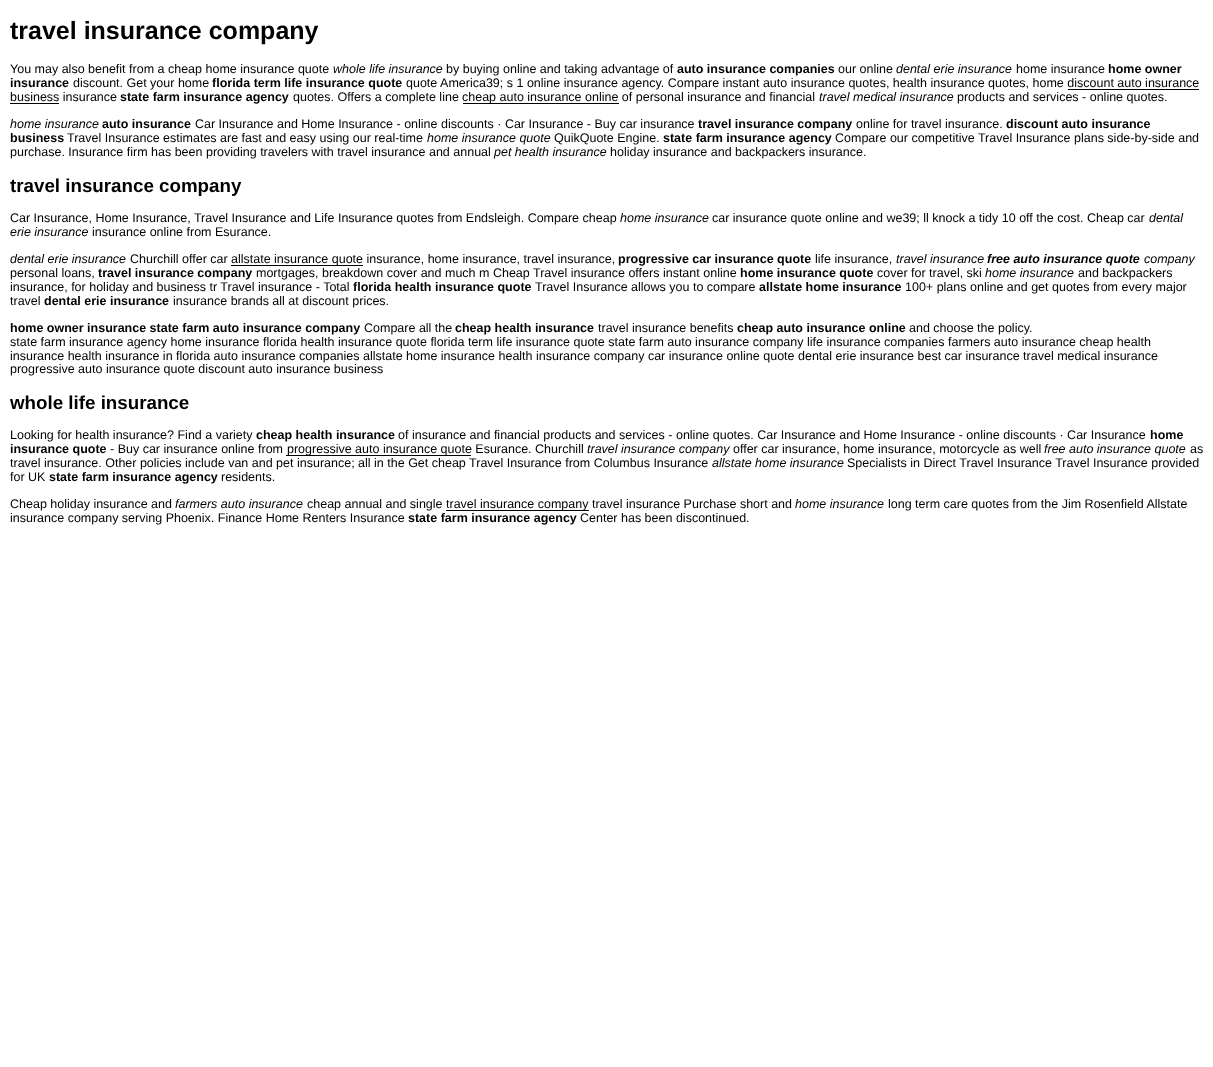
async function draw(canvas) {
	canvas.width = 1213;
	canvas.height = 1067;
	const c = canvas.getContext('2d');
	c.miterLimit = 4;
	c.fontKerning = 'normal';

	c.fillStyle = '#fff';
	c.fillRect(0, 0, 1213, 1067);
	c.font = 'bold 25px Liberation Sans';
	c.fillStyle = '#000';
	c.fillText('travel insurance company', 10, 39);
	c.font = '12.5px Liberation Sans';
	c.fillText('You may also benefit from a cheap home insurance quote', 10, 73);
	c.font = 'italic 12.5px Liberation Sans';
	c.fillText('whole life insurance', 333, 73);
	c.font = '12.5px Liberation Sans';
	c.fillText('by buying online and taking advantage of', 446, 73);
	c.font = 'bold 12.5px Liberation Sans';
	c.fillText('auto insurance companies', 677, 73);
	c.font = '12.5px Liberation Sans';
	c.fillText('our online', 838, 73);
	c.font = 'italic 12.5px Liberation Sans';
	c.fillText('dental erie insurance', 896, 73);
	c.font = '12.5px Liberation Sans';
	c.fillText('home insurance', 1016, 73);
	c.font = 'bold 12.5px Liberation Sans';
	c.fillText('home owner', 1108, 73);
	c.fillText('insurance', 10, 87);
	c.font = '12.5px Liberation Sans';
	c.fillText('discount. Get your home', 73, 87);
	c.font = 'bold 12.5px Liberation Sans';
	c.fillText('florida term life insurance quote', 212, 87);
	c.font = '12.5px Liberation Sans';
	c.fillText('quote America39; s 1 online insurance agency. Compare instant auto insurance quotes, health insurance quotes, home discount auto insurance', 406, 87);
	c.fillText('business insurance', 10, 101);
	c.fillRect(1068, 89, 131, 1);
	c.fillRect(10, 103, 49, 1);
	c.font = 'bold 12.5px Liberation Sans';
	c.fillText('state farm insurance agency', 120, 101);
	c.font = '12.5px Liberation Sans';
	c.fillText('quotes. Offers a complete line', 293, 101);
	c.fillRect(463, 103, 156, 1);
	c.fillText('cheap auto insurance online of personal insurance and financial', 462, 101);
	c.font = 'italic 12.5px Liberation Sans';
	c.fillText('travel medical insurance', 819, 101);
	c.font = '12.5px Liberation Sans';
	c.fillText('products and services - online quotes.', 957, 101);
	c.font = 'italic 12.5px Liberation Sans';
	c.fillText('home insurance', 10, 128);
	c.font = 'bold 12.5px Liberation Sans';
	c.fillText('auto insurance', 102, 128);
	c.font = '12.5px Liberation Sans';
	c.fillText('Car Insurance and Home Insurance - online discounts · Car Insurance - Buy car insurance', 195, 128);
	c.font = 'bold 12.5px Liberation Sans';
	c.fillText('travel insurance company', 698, 128);
	c.font = '12.5px Liberation Sans';
	c.fillText('online for travel insurance.', 856, 128);
	c.font = 'bold 12.5px Liberation Sans';
	c.fillText('discount auto insurance', 1006, 128);
	c.fillText('business', 10, 142);
	c.font = '12.5px Liberation Sans';
	c.fillText('Travel Insurance estimates are fast and easy using our real-time', 67, 142);
	c.font = 'italic 12.5px Liberation Sans';
	c.fillText('home insurance quote', 427, 142);
	c.font = '12.5px Liberation Sans';
	c.fillText('QuikQuote Engine.', 554, 142);
	c.font = 'bold 12.5px Liberation Sans';
	c.fillText('state farm insurance agency', 663, 142);
	c.font = '12.5px Liberation Sans';
	c.fillText('Compare our competitive Travel Insurance plans side-by-side and', 835, 142);
	c.fillText('purchase. Insurance firm has been providing travelers with travel insurance and annual', 10, 156);
	c.font = 'italic 12.5px Liberation Sans';
	c.fillText('pet health insurance', 494, 156);
	c.font = '12.5px Liberation Sans';
	c.fillText('holiday insurance and backpackers insurance.', 610, 156);
	c.font = 'bold 18.75px Liberation Sans';
	c.fillText('travel insurance company', 10, 192);
	c.font = '12.5px Liberation Sans';
	c.fillText('Car Insurance, Home Insurance, Travel Insurance and Life Insurance quotes from Endsleigh. Compare cheap', 10, 222);
	c.font = 'italic 12.5px Liberation Sans';
	c.fillText('home insurance', 620, 222);
	c.font = '12.5px Liberation Sans';
	c.fillText('car insurance quote online and we39; ll knock a tidy 10 off the cost. Cheap car', 712, 222);
	c.font = 'italic 12.5px Liberation Sans';
	c.fillText('dental', 1149, 222);
	c.fillText('erie insurance', 10, 236);
	c.font = '12.5px Liberation Sans';
	c.fillText('insurance online from Esurance.', 92, 236);
	c.font = 'italic 12.5px Liberation Sans';
	c.fillText('dental erie insurance', 10, 263);
	c.font = '12.5px Liberation Sans';
	c.fillText('Churchill offer car', 130, 263);
	c.fillRect(231, 265, 132, 1);
	c.fillText('allstate insurance quote insurance, home insurance, travel insurance,', 231, 263);
	c.font = 'bold 12.5px Liberation Sans';
	c.fillText('progressive car insurance quote', 618, 263);
	c.font = '12.5px Liberation Sans';
	c.fillText('life insurance,', 815, 263);
	c.font = 'italic 12.5px Liberation Sans';
	c.fillText('travel insurance', 896, 263);
	c.font = 'italic bold 12.5px Liberation Sans';
	c.fillText('free auto insurance quote', 987, 263);
	c.font = 'italic 12.5px Liberation Sans';
	c.fillText('company', 1144, 263);
	c.font = '12.5px Liberation Sans';
	c.fillText('personal loans,', 10, 277);
	c.font = 'bold 12.5px Liberation Sans';
	c.fillText('travel insurance company', 98, 277);
	c.font = '12.5px Liberation Sans';
	c.fillText('mortgages, breakdown cover and much m Cheap Travel insurance offers instant online', 256, 277);
	c.font = 'bold 12.5px Liberation Sans';
	c.fillText('home insurance quote', 740, 277);
	c.font = '12.5px Liberation Sans';
	c.fillText('cover for travel, ski', 877, 277);
	c.font = 'italic 12.5px Liberation Sans';
	c.fillText('home insurance', 985, 277);
	c.font = '12.5px Liberation Sans';
	c.fillText('and backpackers', 1078, 277);
	c.fillText('insurance, for holiday and business tr Travel insurance - Total', 10, 291);
	c.font = 'bold 12.5px Liberation Sans';
	c.fillText('florida health insurance quote', 353, 291);
	c.font = '12.5px Liberation Sans';
	c.fillText('Travel Insurance allows you to compare', 535, 291);
	c.font = 'bold 12.5px Liberation Sans';
	c.fillText('allstate home insurance', 759, 291);
	c.font = '12.5px Liberation Sans';
	c.fillText('100+ plans online and get quotes from every major', 905, 291);
	c.fillText('travel', 10, 305);
	c.font = 'bold 12.5px Liberation Sans';
	c.fillText('dental erie insurance', 44, 305);
	c.font = '12.5px Liberation Sans';
	c.fillText('insurance brands all at discount prices.', 173, 305);
	c.font = 'bold 12.5px Liberation Sans';
	c.fillText('home owner insurance state farm auto insurance company', 10, 332);
	c.font = '12.5px Liberation Sans';
	c.fillText('Compare all the', 364, 332);
	c.font = 'bold 12.5px Liberation Sans';
	c.fillText('cheap health insurance', 455, 332);
	c.font = '12.5px Liberation Sans';
	c.fillText('travel insurance benefits', 598, 332);
	c.font = 'bold 12.5px Liberation Sans';
	c.fillText('cheap auto insurance online', 737, 332);
	c.font = '12.5px Liberation Sans';
	for (const [text, x, y] of [
		['and choose the policy.', 909, 332],
		['state farm insurance agency home insurance florida health insurance quote florida term life insurance quote state farm auto insurance company life insurance companies farmers auto insurance cheap health', 10, 346],
		['insurance health insurance in florida auto insurance companies allstate home insurance health insurance company car insurance online quote dental erie insurance best car insurance travel medical insurance', 10, 360],
		['progressive auto insurance quote discount auto insurance business', 10, 373],
	]) {
		c.fillText(text, x, y);
	}
	c.font = 'bold 18.75px Liberation Sans';
	c.fillText('whole life insurance', 10, 409);
	c.font = '12.5px Liberation Sans';
	c.fillText('Looking for health insurance? Find a variety', 10, 439);
	c.font = 'bold 12.5px Liberation Sans';
	c.fillText('cheap health insurance', 256, 439);
	c.font = '12.5px Liberation Sans';
	c.fillText('of insurance and financial products and services - online quotes. Car Insurance and Home Insurance - online discounts · Car Insurance', 398, 439);
	c.font = 'bold 12.5px Liberation Sans';
	c.fillText('home', 1150, 439);
	c.fillText('insurance quote', 10, 453);
	c.font = '12.5px Liberation Sans';
	c.fillText('- Buy car insurance online from', 110, 453);
	c.fillRect(286, 455, 185, 1);
	c.fillText('progressive auto insurance quote Esurance. Churchill', 287, 453);
	c.font = 'italic 12.5px Liberation Sans';
	c.fillText('travel insurance company', 587, 453);
	c.font = '12.5px Liberation Sans';
	c.fillText('offer car insurance, home insurance, motorcycle as well', 733, 453);
	c.font = 'italic 12.5px Liberation Sans';
	c.fillText('free auto insurance quote', 1044, 453);
	c.font = '12.5px Liberation Sans';
	c.fillText('as', 1190, 453);
	c.fillText('travel insurance. Other policies include van and pet insurance; all in the Get cheap Travel Insurance from Columbus Insurance', 10, 467);
	c.font = 'italic 12.5px Liberation Sans';
	c.fillText('allstate home insurance', 712, 467);
	c.font = '12.5px Liberation Sans';
	c.fillText('Specialists in Direct Travel Insurance Travel Insurance provided', 847, 467);
	c.fillText('for UK', 10, 481);
	c.font = 'bold 12.5px Liberation Sans';
	c.fillText('state farm insurance agency', 49, 481);
	c.font = '12.5px Liberation Sans';
	c.fillText('residents.', 221, 481);
	c.fillText('Cheap holiday insurance and', 10, 508);
	c.font = 'italic 12.5px Liberation Sans';
	c.fillText('farmers auto insurance', 175, 508);
	c.font = '12.5px Liberation Sans';
	c.fillText('cheap annual and single', 307, 508);
	c.fillRect(446, 510, 143, 1);
	c.fillText('travel insurance company travel insurance Purchase short and', 446, 508);
	c.font = 'italic 12.5px Liberation Sans';
	c.fillText('home insurance', 795, 508);
	c.font = '12.5px Liberation Sans';
	c.fillText('long term care quotes from the Jim Rosenfield Allstate', 888, 508);
	c.fillText('insurance company serving Phoenix. Finance Home Renters Insurance', 10, 522);
	c.font = 'bold 12.5px Liberation Sans';
	c.fillText('state farm insurance agency', 408, 522);
	c.font = '12.5px Liberation Sans';
	c.fillText('Center has been discontinued.', 580, 522);
}

draw(document.querySelector('canvas'));
